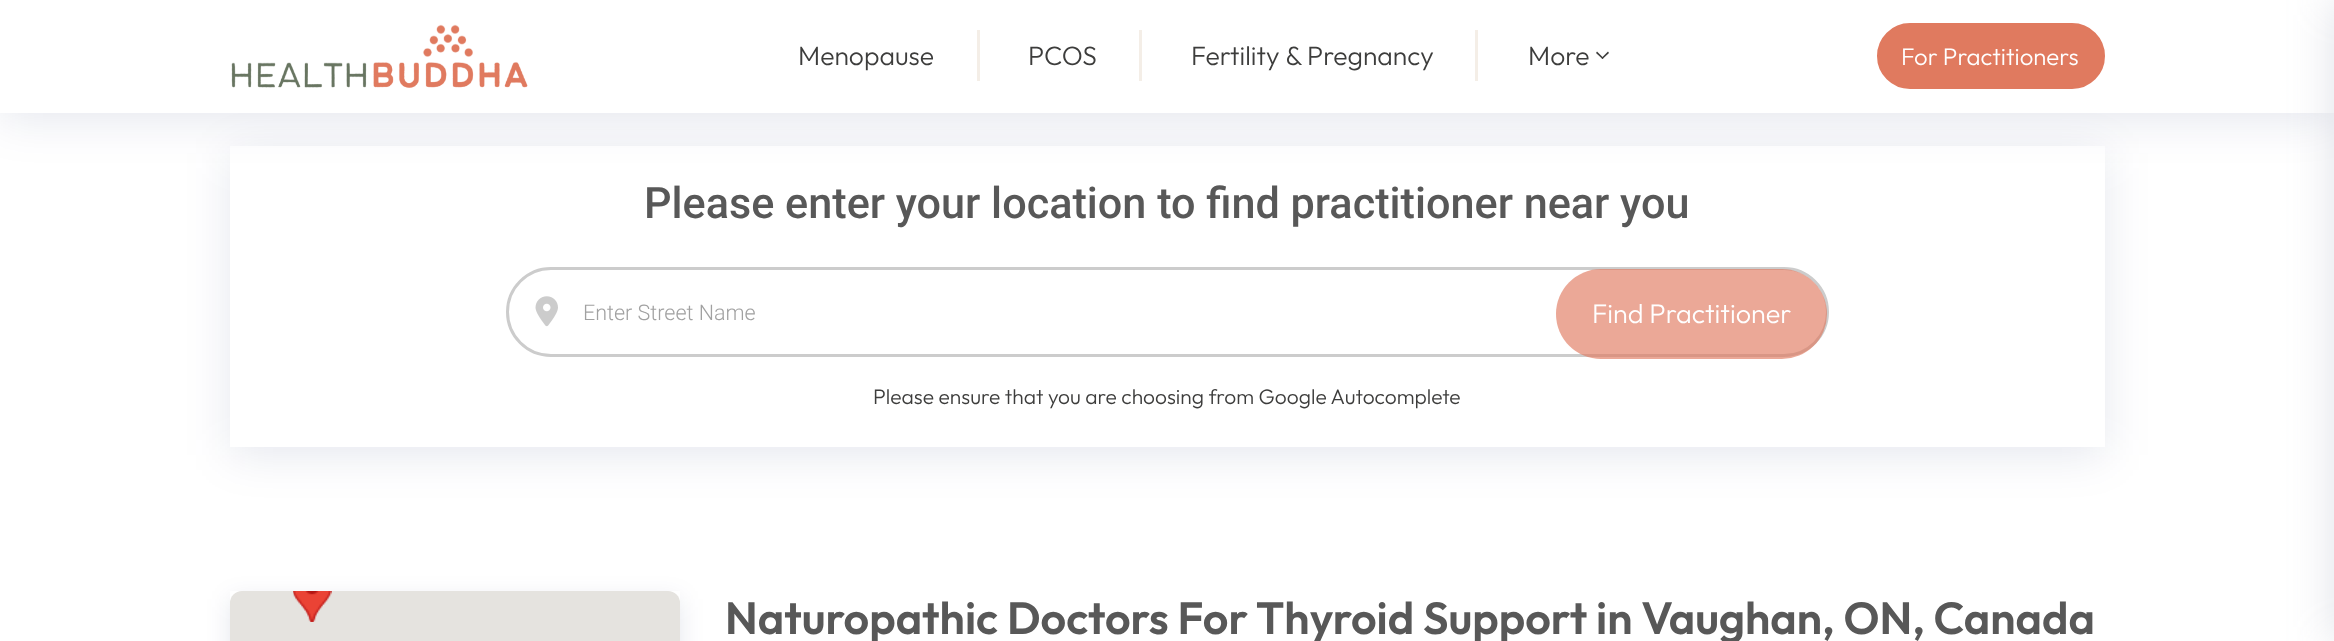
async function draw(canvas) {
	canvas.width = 2334;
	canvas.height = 641;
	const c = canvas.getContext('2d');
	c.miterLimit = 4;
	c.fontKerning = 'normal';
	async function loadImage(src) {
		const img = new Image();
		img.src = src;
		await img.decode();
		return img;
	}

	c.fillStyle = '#fff';
	c.fillRect(0, 0, 2334, 641);
	c.fillStyle = '#0016541a';
	c.filter = 'blur(22.5px)';
	c.beginPath();
	c.rect(0, 8, 2334, 112);
	c.fill();
	c.filter = 'none';
	c.save();
	c.beginPath();
	c.moveTo(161, 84);
	c.lineTo(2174, 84);
	c.lineTo(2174, 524);
	c.lineTo(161, 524);
	c.closePath();
	c.moveTo(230, 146);
	c.lineTo(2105, 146);
	c.lineTo(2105, 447);
	c.lineTo(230, 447);
	c.closePath();
	c.clip('evenodd');
	c.filter = 'blur(22.5px)';
	c.beginPath();
	c.rect(230, 153, 1875, 302);
	c.fill();
	c.filter = 'none';
	c.restore();
	c.fillStyle = '#fff';
	c.fillRect(0, 0, 2334, 113);
	c.drawImage(await loadImage('img1.png'), 231, 24, 297, 64);
	c.font = '300 26.5px Outfit';
	c.fillStyle = '#3d3d3c';
	c.fillText('Menopause', 798, 65);
	c.fillStyle = '#f4eee7';
	c.fillRect(977, 30, 3, 51);
	c.fillStyle = '#3d3d3c';
	c.fillText('PCOS', 1028, 65);
	c.fillStyle = '#f4eee7';
	c.fillRect(1139, 30, 3, 51);
	c.fillStyle = '#3d3d3c';
	c.fillText('Fertility & Pregnancy', 1191, 65);
	c.fillStyle = '#f4eee7';
	c.fillRect(1475, 30, 3, 51);
	c.fillStyle = '#3d3d3c';
	c.fillText('More', 1528, 65);
	c.beginPath();
	c.moveTo(1608, 51.5);
	c.lineTo(1609, 53);
	c.lineTo(1602.5, 59);
	c.lineTo(1601.5, 58);
	c.closePath();
	c.fill();
	c.beginPath();
	c.moveTo(1597, 51.5);
	c.lineTo(1603.5, 58);
	c.lineTo(1602.5, 59);
	c.lineTo(1596, 53);
	c.closePath();
	c.fill();
	c.fillStyle = '#e07a5f';
	c.beginPath();
	c.roundRect(1878, 24, 226, 64, 32);
	c.fill();
	c.strokeStyle = '#e07a5f';
	c.lineWidth = 2;
	c.stroke();
	c.font = '300 24px Outfit';
	c.fillStyle = '#fff';
	c.fillText('For Practitioners', 1901, 65);
	c.fillStyle = '#7f89a140';
	c.filter = 'blur(22.5px)';
	c.beginPath();
	c.rect(2334, 0, 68, 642);
	c.fill();
	c.filter = 'none';
	c.font = '500 43.2px Roboto';
	c.fillStyle = '#585858';
	c.fillText('Please enter your location to find practitioner near you', 644, 218);
	c.beginPath();
	c.roundRect(507.5, 268.5, 1320, 87, 43.5);
	c.strokeStyle = '#ccc';
	c.lineWidth = 3;
	c.stroke();
	c.drawImage(await loadImage('img2.png'), 535, 296, 23, 31);
	c.font = '300 21.5px Roboto';
	c.fillStyle = '#a1a1a1';
	c.fillText('Enter Street Name', 583, 320);
	c.fillStyle = '#e07a5fa6';
	c.beginPath();
	c.roundRect(1556, 269, 271, 90, 45);
	c.fill();
	c.font = '300 27px Outfit';
	c.fillStyle = '#fff';
	c.fillText('Find Practitioner', 1592, 323);
	c.font = '300 21px Outfit';
	c.fillStyle = '#3d3d3c';
	c.fillText('Please ensure that you are choosing from Google Autocomplete', 873, 404);
	c.save();
	c.beginPath();
	c.moveTo(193, 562);
	c.lineTo(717, 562);
	c.lineTo(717, 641);
	c.lineTo(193, 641);
	c.closePath();
	c.moveTo(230, 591);
	c.lineTo(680, 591);
	c.lineTo(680, 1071);
	c.lineTo(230, 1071);
	c.closePath();
	c.clip('evenodd');
	c.fillStyle = '#0016541a';
	c.filter = 'blur(12px)';
	c.beginPath();
	c.rect(230, 599, 450, 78);
	c.fill();
	c.filter = 'none';
	c.restore();
	c.fillStyle = '#e5e3df';
	c.beginPath();
	c.roundRect(230, 591, 450, 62, 12);
	c.fill();
	c.drawImage(await loadImage('img3.png'), 293, 591, 39, 31);
	c.drawImage(await loadImage('img4.png'), 293, 591, 39, 31);
	c.font = '600 45px Outfit';
	c.fillStyle = '#585858';
	c.fillText('Naturopathic Doctors For Thyroid Support in Vaughan, ON, Canada', 725, 634);
}

draw(document.querySelector('canvas'));
